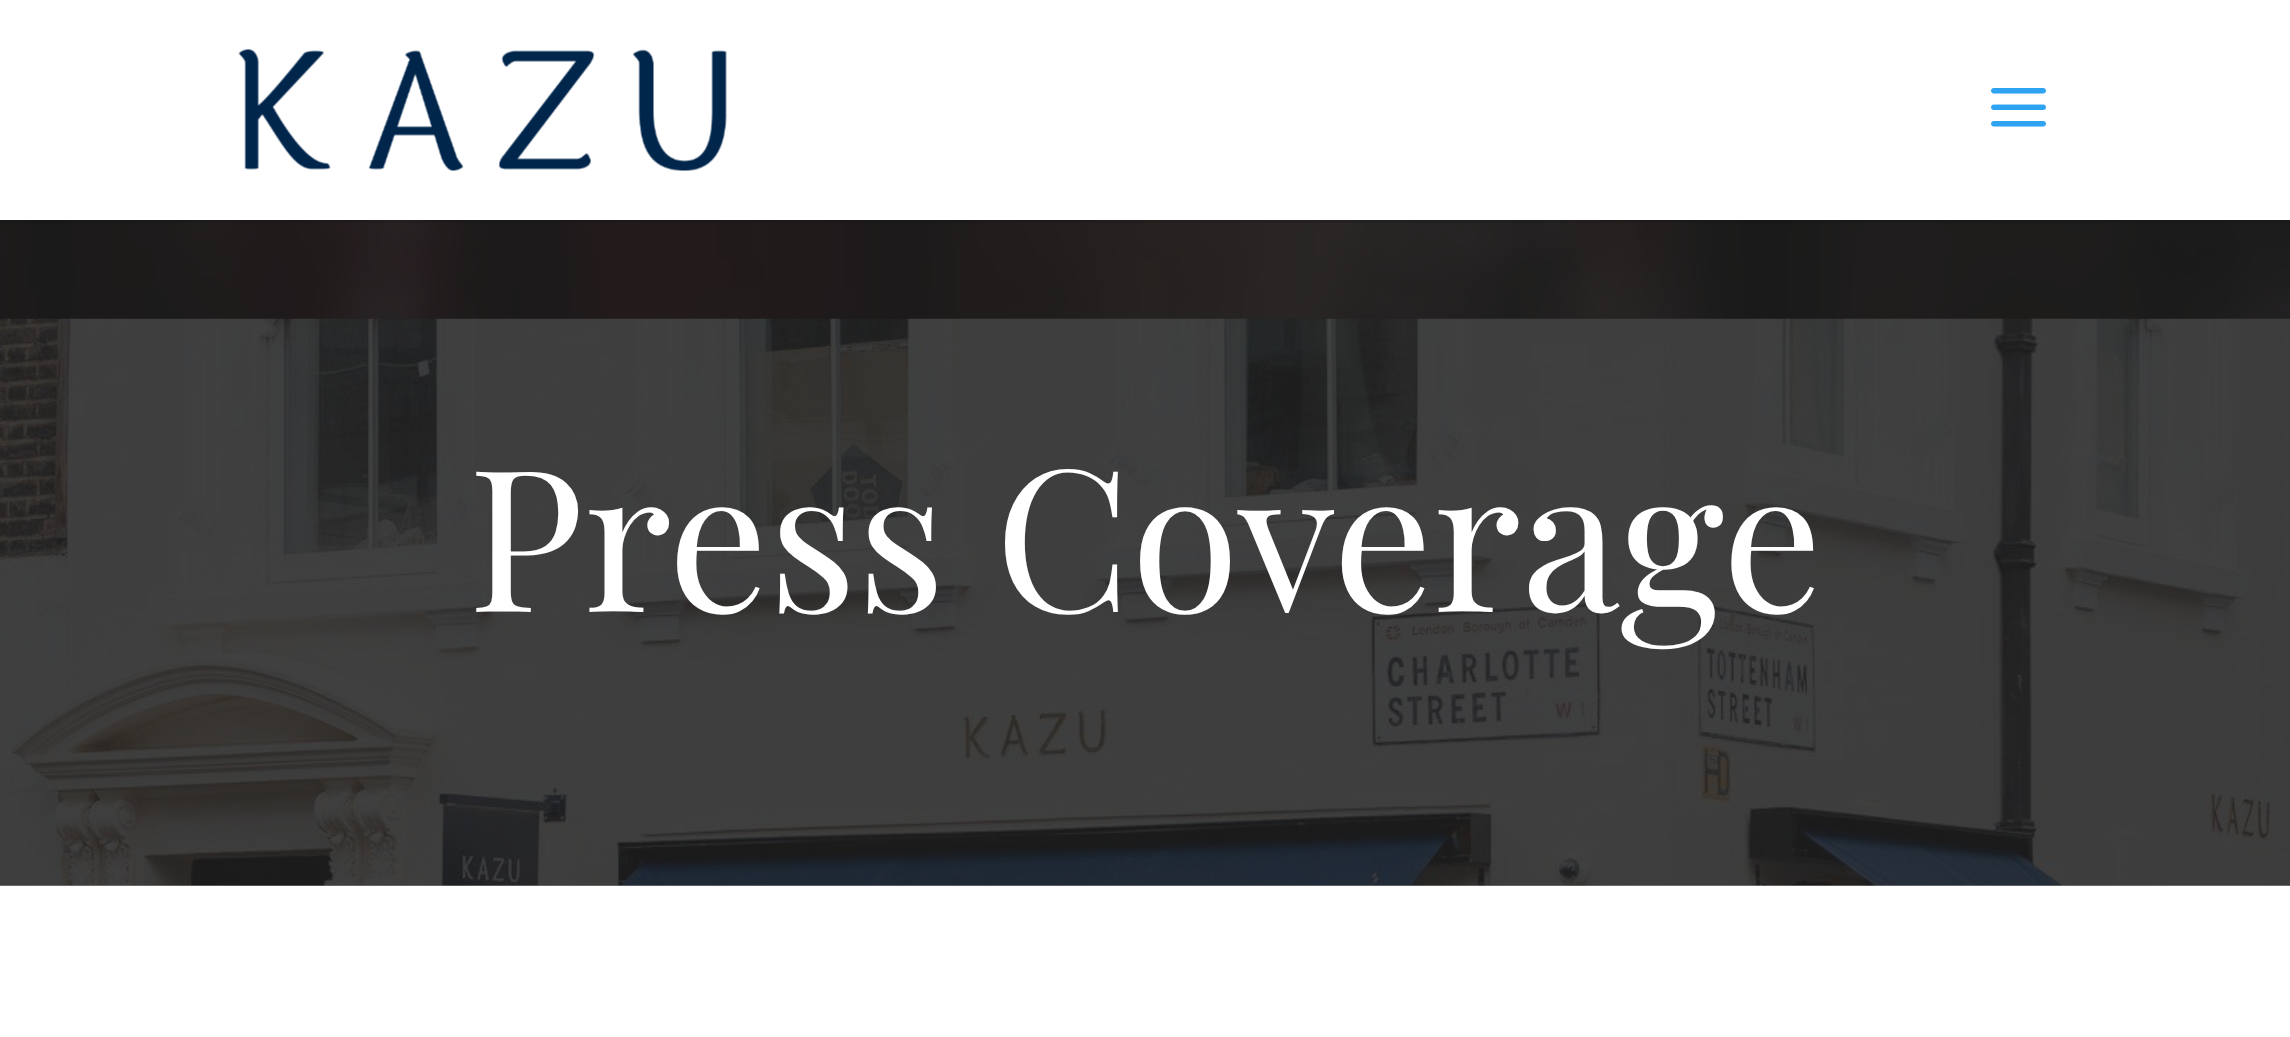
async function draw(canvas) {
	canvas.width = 2290;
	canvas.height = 1037;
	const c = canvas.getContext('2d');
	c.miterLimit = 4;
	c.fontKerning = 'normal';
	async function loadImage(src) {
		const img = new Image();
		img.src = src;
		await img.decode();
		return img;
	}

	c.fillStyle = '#fff';
	c.fillRect(0, 0, 2290, 1037);
	c.drawImage(await loadImage('img3.png'), 0, 220, 2290, 666);
	c.fillStyle = '#0000001a';
	c.beginPath();
	c.moveTo(0, 220);
	c.lineTo(0, 223);
	c.lineTo(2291, 223);
	c.lineTo(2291, 3);
	c.lineTo(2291, 220);
	c.closePath();
	c.fill();
	c.drawImage(await loadImage('img1.png'), 238, 49, 489, 122);
	c.drawImage(await loadImage('img2.png'), 1991, 88, 55, 39);
	c.drawImage(await loadImage('img4.png'), 0, 318, 2290, 568);
	c.font = '198px Playfair Display';
	c.fillStyle = '#fff';
	c.fillText('Press Coverage', 468, 612);
}

draw(document.querySelector('canvas'));
